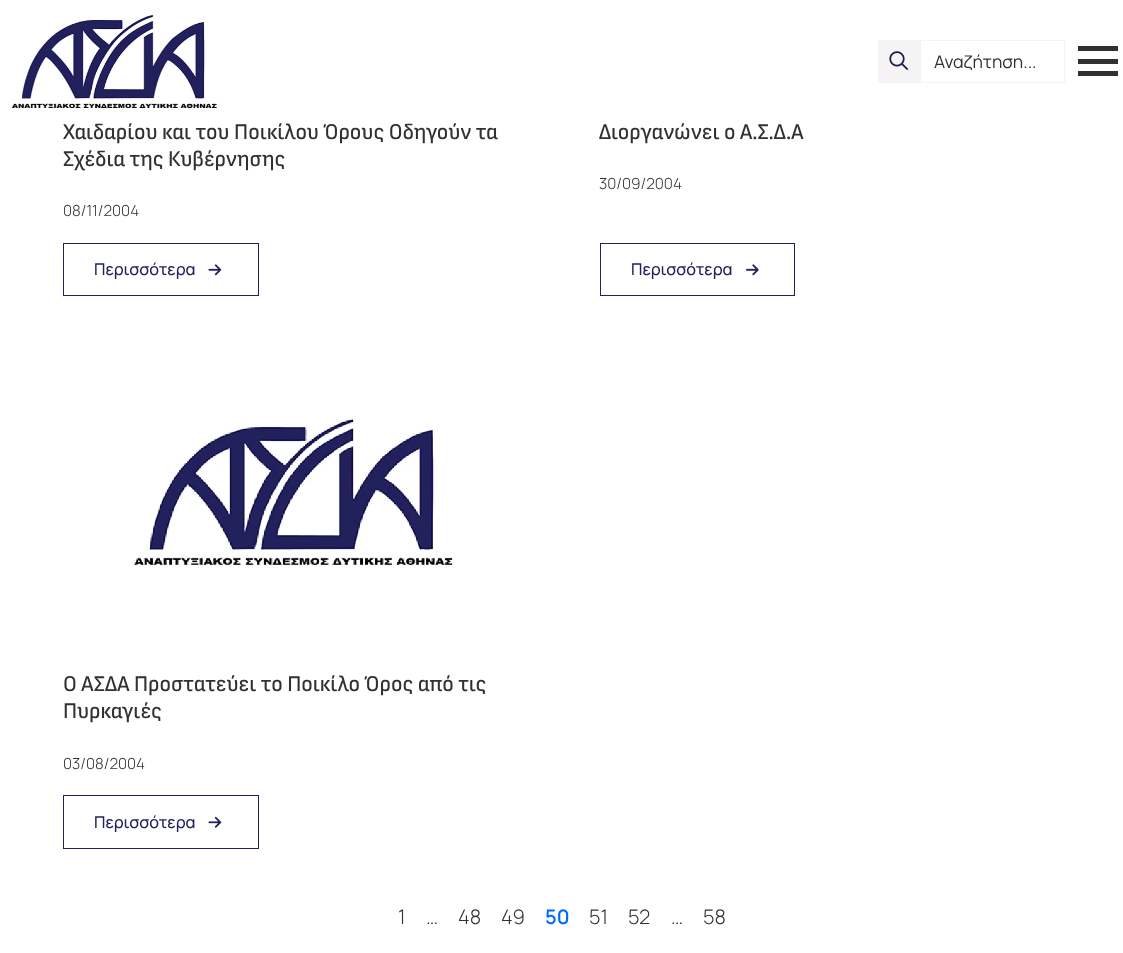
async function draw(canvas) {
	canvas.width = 1123;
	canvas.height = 953;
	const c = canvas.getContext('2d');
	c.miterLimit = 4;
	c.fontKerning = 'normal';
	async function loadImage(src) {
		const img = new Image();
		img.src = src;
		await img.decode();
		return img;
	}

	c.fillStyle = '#fff';
	c.fillRect(0, 0, 1123, 953);
	c.drawImage(await loadImage('img1.png'), 12, 14, 205, 95);
	c.fillStyle = '#f5f3f5';
	c.fillRect(878, 40, 42, 43);
	c.drawImage(await loadImage('img2.png'), 889, 51, 20, 19);
	c.strokeStyle = '#f5f3f5';
	c.strokeRect(920.5, 40.5, 144, 42);
	c.font = '17.5px Manrope';
	c.fillStyle = '#313131';
	c.fillText('Αναζήτηση...', 934, 68);
	for (const [x, y, w, h, color] of [
		[1078, 59, 40, 5, '#313131'],
		[1078, 46, 40, 5, '#313131'],
		[1078, 71, 40, 5, '#313131'],
	]) {
		c.fillStyle = color;
		c.fillRect(x, y, w, h);
	}
	c.font = '500 22.5px Sofia Sans Semi Condensed';
	c.fillText('Χαιδαρίου και του Ποικίλου Όρους Οδηγούν τα', 63, 139);
	c.fillText('Σχέδια της Κυβέρνησης', 63, 166);
	c.font = '300 15.25px Manrope';
	c.fillText('08/11/2004', 63, 216);
	c.strokeStyle = '#22215d';
	c.strokeRect(63.5, 243.5, 195, 52);
	c.font = '500 16.25px Manrope';
	c.fillStyle = '#22215d';
	c.fillText('Περισσότερα', 94, 275);
	c.drawImage(await loadImage('img3.png'), 208, 264, 14, 12);
	c.font = '500 22.5px Sofia Sans Semi Condensed';
	c.fillStyle = '#313131';
	c.fillText('Διοργανώνει ο Α.Σ.Δ.Α', 599, 139);
	c.font = '300 15.25px Manrope';
	c.fillText('30/09/2004', 599, 189);
	c.strokeRect(600.5, 243.5, 194, 52);
	c.font = '500 16.25px Manrope';
	c.fillStyle = '#22215d';
	c.fillText('Περισσότερα', 631, 275);
	c.drawImage(await loadImage('img4.png'), 746, 264, 13, 12);
	c.drawImage(await loadImage('img5.png'), 134, 418, 320, 148);
	c.font = '500 22.5px Sofia Sans Semi Condensed';
	c.fillStyle = '#313131';
	c.fillText('Ο ΑΣΔΑ Προστατεύει το Ποικίλο Όρος από τις', 63, 691);
	c.fillText('Πυρκαγιές', 63, 718);
	c.font = '300 15.25px Manrope';
	c.fillText('03/08/2004', 63, 769);
	c.strokeRect(63.5, 795.5, 195, 53);
	c.font = '500 16.25px Manrope';
	c.fillStyle = '#22215d';
	c.fillText('Περισσότερα', 94, 828);
	c.drawImage(await loadImage('img6.png'), 208, 816, 14, 12);
	c.font = '300 20px Manrope';
	c.fillStyle = '#313131';
	for (const [text, x, y] of [
		['1', 398, 924],
		['…', 426, 924],
		['48', 458, 924],
		['49', 501, 924],
	]) {
		c.fillText(text, x, y);
	}
	c.font = '600 20px Manrope';
	c.fillStyle = '#0069ff';
	c.fillText('50', 545, 924);
	c.font = '300 20px Manrope';
	c.fillStyle = '#313131';
	for (const [text, x, y] of [
		['51', 589, 924],
		['52', 628, 924],
		['…', 671, 924],
		['58', 703, 924],
	]) {
		c.fillText(text, x, y);
	}
}

draw(document.querySelector('canvas'));
